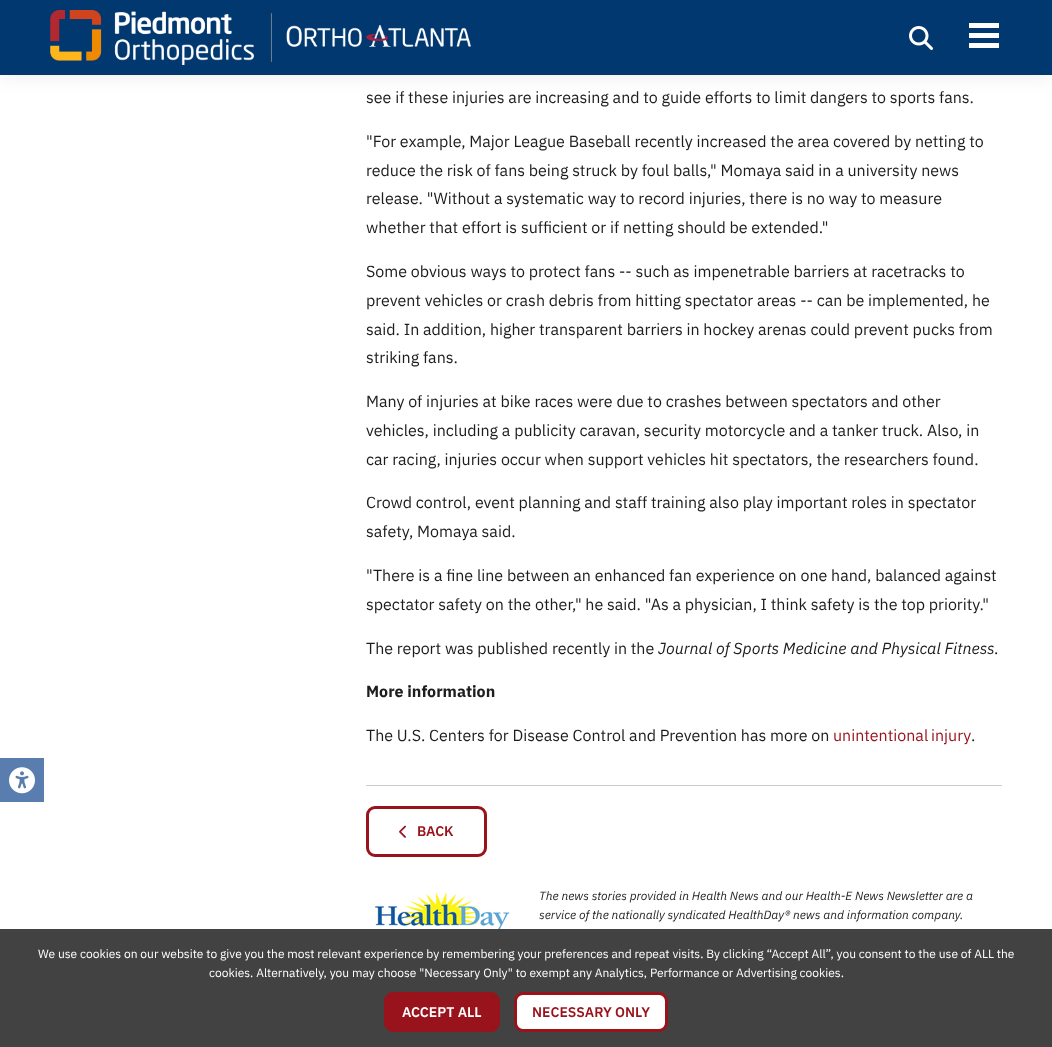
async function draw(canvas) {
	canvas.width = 1052;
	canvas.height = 1047;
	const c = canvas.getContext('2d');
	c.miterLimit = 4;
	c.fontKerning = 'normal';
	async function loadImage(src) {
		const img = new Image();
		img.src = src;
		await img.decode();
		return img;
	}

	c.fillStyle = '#fff';
	c.fillRect(0, 0, 1052, 1047);
	c.fillStyle = '#597daf';
	c.fillRect(0, 758, 44, 44);
	c.drawImage(await loadImage('img1.png'), 9, 767, 26, 27);
	c.fillStyle = '#0a101514';
	c.filter = 'blur(10px)';
	c.beginPath();
	c.rect(0, 0, 1052, 75);
	c.fill();
	c.filter = 'none';
	c.fillStyle = '#00386f';
	c.fillRect(0, 0, 1052, 75);
	c.drawImage(await loadImage('img2.png'), 50, 10, 421, 55);
	c.drawImage(await loadImage('img3.png'), 909, 26, 24, 24);
	for (const [x, y, w, h, color] of [
		[969, 23, 30, 5, '#fff'],
		[969, 33, 30, 5, '#fff'],
		[969, 43, 30, 5, '#fff'],
	]) {
		c.fillStyle = color;
		c.fillRect(x, y, w, h);
	}
	c.font = '16px IBM Plex Sans';
	c.fillStyle = '#1d1d1d';
	for (const [text, x, y] of [
		['see if these injuries are increasing and to guide efforts to limit dangers to sports fans.', 366, 103],
		['"For example, Major League Baseball recently increased the area covered by netting to', 366, 147],
		['reduce the risk of fans being struck by foul balls," Momaya said in a university news', 366, 176],
		['release. "Without a systematic way to record injuries, there is no way to measure', 366, 204],
		['whether that effort is sufficient or if netting should be extended."', 366, 233],
		['Some obvious ways to protect fans -- such as impenetrable barriers at racetracks to', 366, 277],
		['prevent vehicles or crash debris from hitting spectator areas -- can be implemented, he', 366, 306],
		['said. In addition, higher transparent barriers in hockey arenas could prevent pucks from', 366, 335],
		['striking fans.', 366, 363],
		['Many of injuries at bike races were due to crashes between spectators and other', 366, 407],
		['vehicles, including a publicity caravan, security motorcycle and a tanker truck. Also, in', 366, 436],
		['car racing, injuries occur when support vehicles hit spectators, the researchers found.', 366, 465],
		['Crowd control, event planning and staff training also play important roles in spectator', 366, 508],
		['safety, Momaya said.', 366, 537],
		['"There is a fine line between an enhanced fan experience on one hand, balanced against', 366, 581],
		['spectator safety on the other," he said. "As a physician, I think safety is the top priority."', 366, 610],
		['The report was published recently in the', 366, 654],
	]) {
		c.fillText(text, x, y);
	}
	c.font = 'italic 16px IBM Plex Sans';
	c.fillText('Journal of Sports Medicine and Physical Fitness', 658, 654);
	c.font = '16px IBM Plex Sans';
	c.fillText('.', 994, 654);
	c.font = 'bold 16px IBM Plex Sans';
	c.fillText('More information', 366, 697);
	c.font = '16px IBM Plex Sans';
	c.fillText('The U.S. Centers for Disease Control and Prevention has more on', 366, 741);
	c.wordSpacing = '-1px';
	c.fillStyle = '#99131c';
	c.fillText('unintentional injury', 833, 741);
	c.wordSpacing = '0px';
	c.fillStyle = '#1d1d1d';
	c.fillText('.', 971, 741);
	c.fillStyle = '#ccc';
	c.fillRect(366, 785, 636, 1);
	c.beginPath();
	c.roundRect(367.5, 807.5, 118, 48, 7.5);
	c.strokeStyle = '#99131c';
	c.lineWidth = 3;
	c.stroke();
	c.drawImage(await loadImage('img4.png'), 399, 825, 7, 13);
	c.font = '600 14px IBM Plex Sans';
	c.fillStyle = '#99131c';
	c.fillText('BACK', 417, 836);
	c.drawImage(await loadImage('img5.png'), 375, 886, 135, 43);
	c.font = 'italic 12px IBM Plex Sans';
	c.fillStyle = '#1d1d1d';
	c.fillText('The news stories provided in Health News and our Health-E News Newsletter are a', 539, 900);
	c.fillText('service of the nationally syndicated HealthDay® news and information company.', 539, 919);
	c.fillStyle = '#424242';
	c.fillRect(0, 929, 1052, 118);
	c.font = '12px IBM Plex Sans';
	c.fillStyle = '#fff';
	c.fillText('We use cookies on our website to give you the most relevant experience by remembering your preferences and repeat visits. By clicking “Accept All”, you consent to the use of ALL the', 38, 958);
	c.fillText('cookies. Alternatively, you may choose "Necessary Only" to exempt any Analytics, Performance or Advertising cookies.', 209, 977);
	c.fillStyle = '#99131c';
	c.beginPath();
	c.roundRect(385.5, 993.5, 113, 37, 7.5);
	c.fill();
	c.stroke();
	c.font = '600 14px IBM Plex Sans';
	c.fillStyle = '#fff';
	c.fillText('ACCEPT ALL', 402, 1017);
	c.beginPath();
	c.roundRect(515.5, 993.5, 151, 37, 7.5);
	c.fill();
	c.stroke();
	c.fillStyle = '#99131c';
	c.fillText('NECESSARY ONLY', 532, 1017);
}

draw(document.querySelector('canvas'));
